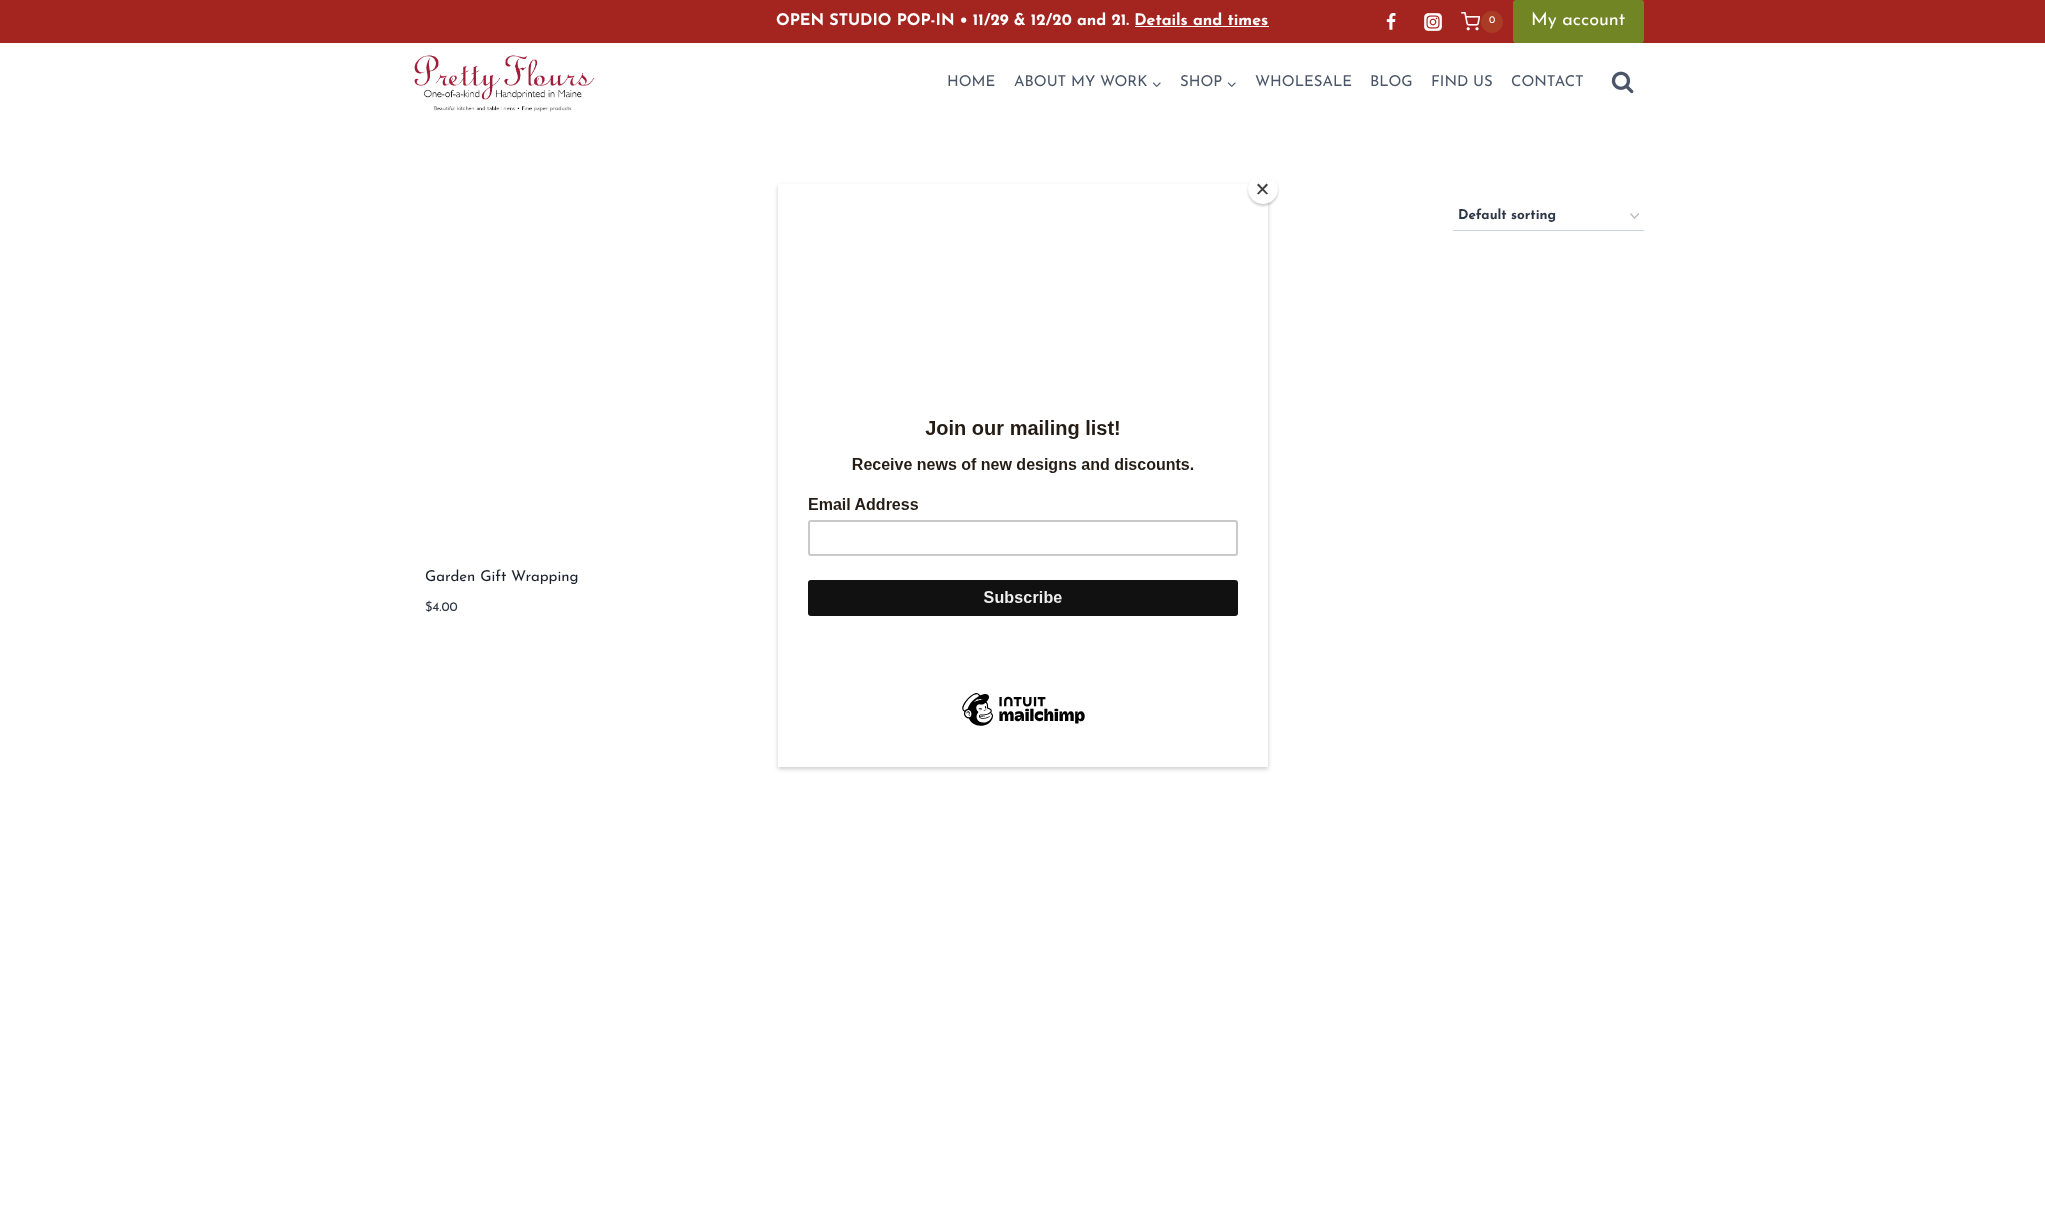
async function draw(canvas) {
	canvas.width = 2045;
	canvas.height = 1227;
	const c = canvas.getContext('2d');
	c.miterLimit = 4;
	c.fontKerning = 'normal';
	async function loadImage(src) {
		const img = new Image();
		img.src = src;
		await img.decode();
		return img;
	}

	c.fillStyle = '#fff';
	c.fillRect(0, 0, 2045, 1227);
	c.fillStyle = '#a42420';
	c.fillRect(0, 0, 2045, 43);
	c.font = 'bold 16px Josefin Sans';
	c.fillStyle = '#fff';
	c.fillText('OPEN STUDIO POP-IN • 11/29 & 12/20 and 21. Details and times', 776, 25);
	c.fillRect(1135, 26, 134, 1);
	c.drawImage(await loadImage('img1.png'), 1386, 13, 10, 17);
	c.drawImage(await loadImage('img2.png'), 1424, 13, 18, 18);
	c.drawImage(await loadImage('img3.png'), 1461, 12, 19, 19);
	c.fillStyle = '#aa3c25';
	c.beginPath();
	c.arc(1492, 22, 11, 0, 2 * Math.PI);
	c.fill();
	c.font = '10px Josefin Sans';
	c.fillStyle = '#fff';
	c.fillText('0', 1489, 23);
	c.fillStyle = '#718524';
	c.beginPath();
	c.roundRect(1513, 0, 131, 43, 3);
	c.fill();
	c.font = '18px Josefin Sans';
	c.fillStyle = '#fff';
	c.fillText('My account', 1531, 25);
	c.drawImage(await loadImage('img4.png'), 414, 55, 181, 57);
	c.font = '15px Josefin Sans';
	c.fillStyle = '#4a5568';
	c.fillText('HOME', 947, 86);
	c.fillText('ABOUT MY WORK', 1014, 86);
	c.drawImage(await loadImage('img5.png'), 1152, 82, 9, 5);
	c.fillText('SHOP', 1180, 86);
	c.drawImage(await loadImage('img5.png'), 1227, 82, 9, 5);
	for (const [text, x, y] of [
		['WHOLESALE', 1255, 86],
		['BLOG', 1370, 86],
		['FIND US', 1431, 86],
		['CONTACT', 1511, 86],
	]) {
		c.fillText(text, x, y);
	}
	c.drawImage(await loadImage('img6.png'), 1611, 71, 23, 23);
	c.beginPath();
	c.moveTo(1630.5, 213.5);
	c.lineTo(1634.5, 218);
	c.lineTo(1639, 213.5);
	c.strokeStyle = '#bbb';
	c.lineWidth = 1.4;
	c.stroke();
	c.fillStyle = '#cbd5e0';
	c.fillRect(1453, 230, 191, 1);
	c.font = 'bold 13.5px Josefin Sans';
	c.fillStyle = '#2d3748';
	c.fillText('Default sorting', 1458, 219);
	c.font = '15px Josefin Sans';
	c.fillStyle = '#1a202c';
	c.fillText('Garden Gift Wrapping', 425, 581);
	c.font = '13px Josefin Sans';
	c.fillStyle = '#2d3748';
	c.fillText('$4.00', 425, 611);
	c.fillStyle = '#00000033';
	c.filter = 'blur(1px)';
	c.beginPath();
	c.roundRect(1248, 176, 30, 30, 15);
	c.fill();
	c.filter = 'none';
	c.save();
	c.beginPath();
	c.moveTo(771, 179);
	c.lineTo(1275, 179);
	c.lineTo(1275, 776);
	c.lineTo(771, 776);
	c.closePath();
	c.moveTo(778, 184);
	c.lineTo(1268, 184);
	c.lineTo(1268, 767);
	c.lineTo(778, 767);
	c.closePath();
	c.clip('evenodd');
	c.filter = 'blur(2px)';
	c.beginPath();
	c.rect(778, 186, 490, 583);
	c.fill();
	c.filter = 'none';
	c.restore();
	c.fillStyle = '#fff';
	c.beginPath();
	c.arc(1263, 189, 15, 0, 2 * Math.PI);
	c.fill();
	c.fillStyle = '#414141';
	c.beginPath();
	c.moveTo(1266.5, 183.5);
	c.lineTo(1268, 185);
	c.lineTo(1258.5, 194.5);
	c.lineTo(1257, 193.5);
	c.closePath();
	c.fill();
	c.beginPath();
	c.moveTo(1257, 185);
	c.lineTo(1258.5, 183.5);
	c.lineTo(1268, 193.5);
	c.lineTo(1266.5, 194.5);
	c.closePath();
	c.fill();
	c.drawImage(await loadImage('img7.png'), 808, 420, 430, 306);
}

draw(document.querySelector('canvas'));
